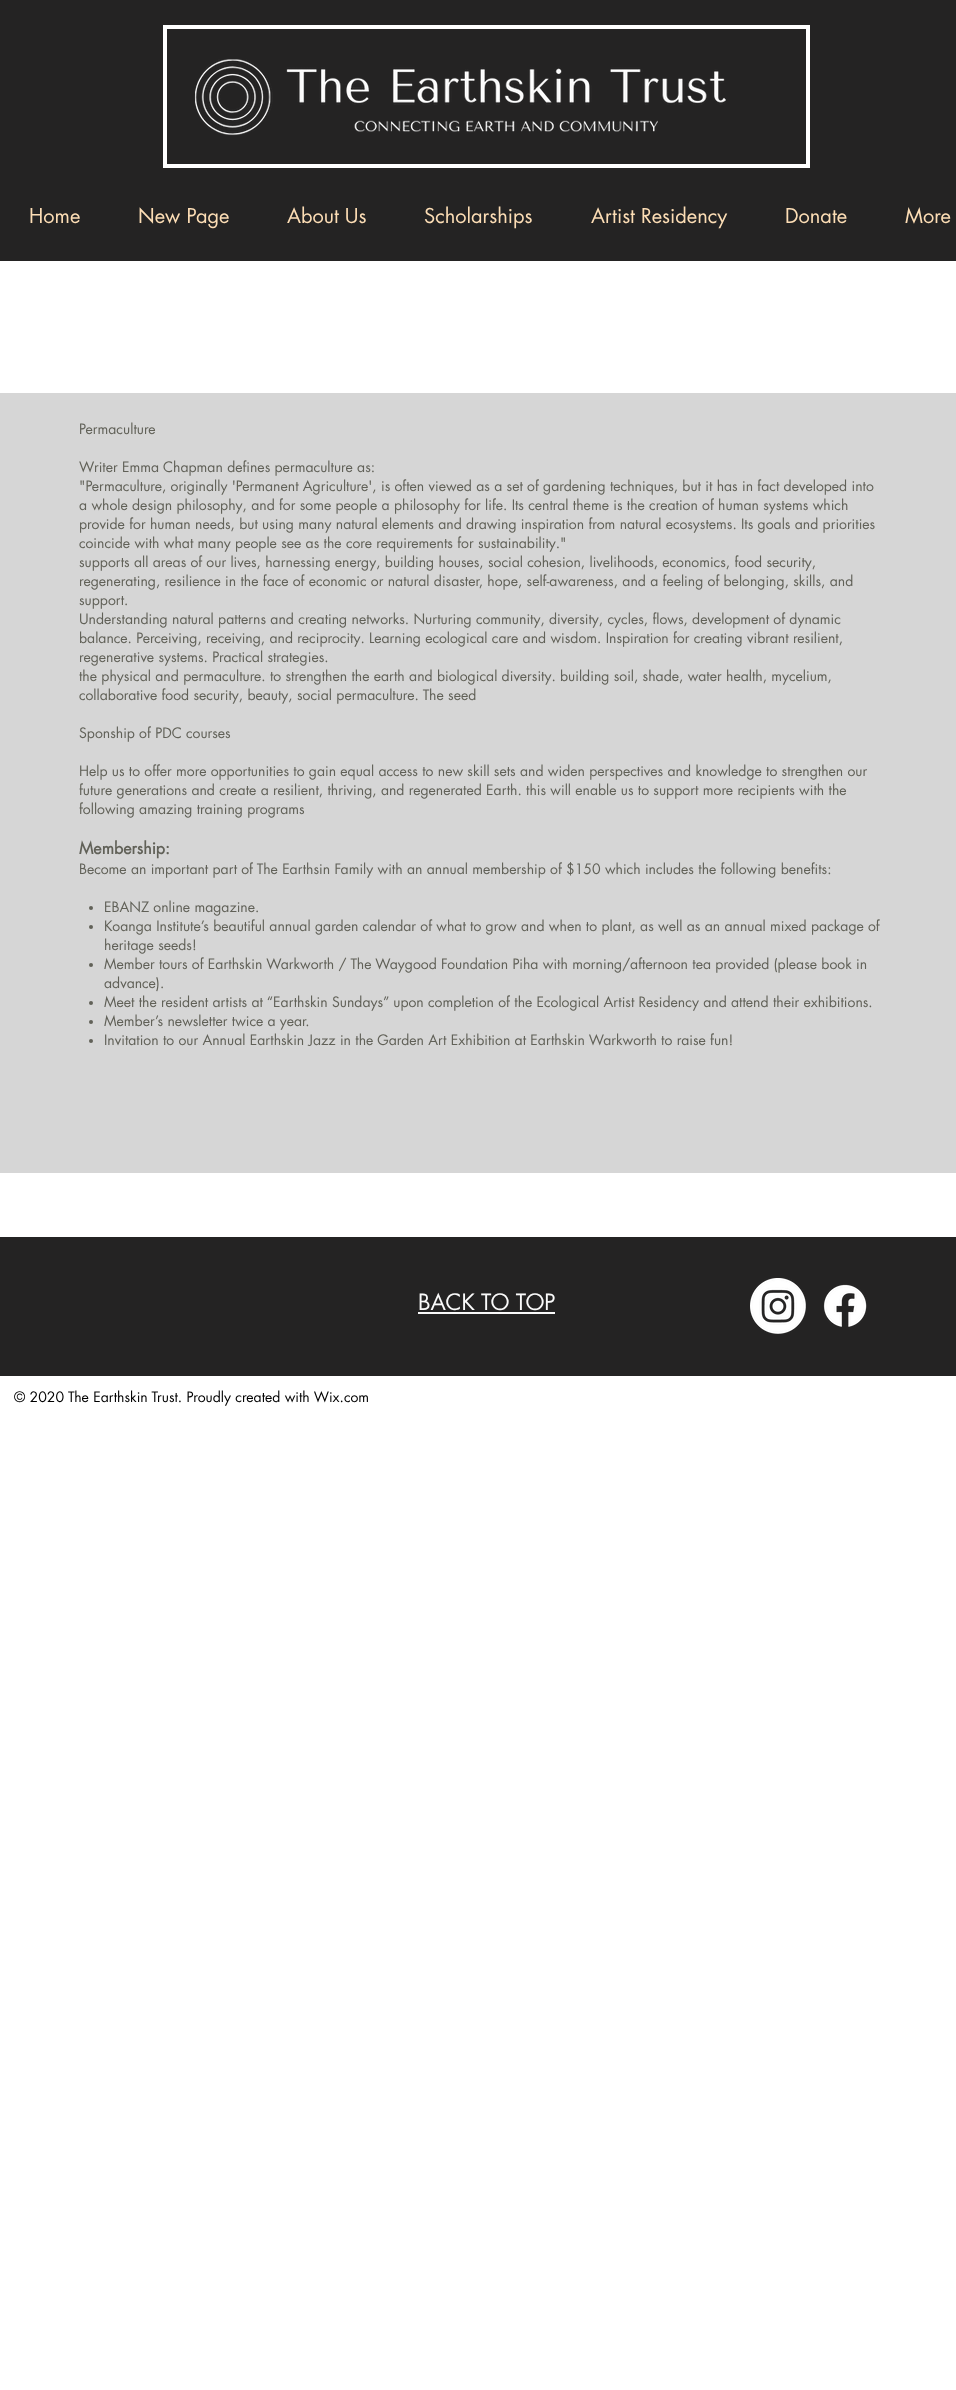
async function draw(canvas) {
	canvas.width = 956;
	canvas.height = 2390;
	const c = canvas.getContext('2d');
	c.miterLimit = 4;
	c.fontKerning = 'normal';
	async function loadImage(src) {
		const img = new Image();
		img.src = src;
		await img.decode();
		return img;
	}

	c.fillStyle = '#fff';
	c.fillRect(0, 0, 956, 2390);
	c.fillStyle = '#242323';
	c.fillRect(0, 0, 956, 261);
	c.strokeStyle = '#fff';
	c.lineWidth = 4;
	c.strokeRect(165, 27, 643, 139);
	c.drawImage(await loadImage('img1.png'), 194, 59, 532, 77);
	c.font = '20px futura';
	c.fillStyle = '#fcddb5';
	for (const [text, x, y] of [
		['Home', 29, 223],
		['New Page', 138, 223],
		['About Us', 287, 223],
		['Scholarships', 424, 223],
		['Artist Residency', 591, 223],
		['Donate', 785, 223],
		['More', 905, 223],
	]) {
		c.fillText(text, x, y);
	}
	c.fillStyle = '#d6d6d6';
	c.fillRect(0, 393, 956, 780);
	c.font = '14px futura';
	c.fillStyle = '#616158';
	for (const [text, x, y] of [
		['Permaculture', 79, 434],
		['Writer Emma Chapman defines permaculture as:', 79, 472],
		['"Permaculture, originally \'Permanent Agriculture\', is often viewed as a set of gardening techniques, but it has in fact developed into', 79, 491],
		['a whole design philosophy, and for some people a philosophy for life. Its central theme is the creation of human systems which', 79, 510],
		['provide for human needs, but using many natural elements and drawing inspiration from natural ecosystems. Its goals and priorities', 79, 529],
		['coincide with what many people see as the core requirements for sustainability."', 79, 548],
		['supports all areas of our lives, harnessing energy, building houses, social cohesion, livelihoods, economics, food security,', 79, 567],
		['regenerating, resilience in the face of economic or natural disaster, hope, self-awareness, and a feeling of belonging, skills, and', 79, 586],
		['support.', 79, 605],
		['Understanding natural patterns and creating networks. Nurturing community, diversity, cycles, flows, development of dynamic', 79, 624],
		['balance. Perceiving, receiving, and reciprocity. Learning ecological care and wisdom. Inspiration for creating vibrant resilient,', 79, 643],
		['regenerative systems. Practical strategies.', 79, 662],
		['the physical and permaculture. to strengthen the earth and biological diversity. building soil, shade, water health, mycelium,', 79, 681],
		['collaborative food security, beauty, social permaculture. The seed', 79, 700],
		['Sponship of PDC courses', 79, 738],
		['Help us to offer more opportunities to gain equal access to new skill sets and widen perspectives and knowledge to strengthen our', 79, 776],
		['future generations and create a resilient, thriving, and regenerated Earth. this will enable us to support more recipients with the', 79, 795],
		['following amazing training programs', 79, 814],
	]) {
		c.fillText(text, x, y);
	}
	c.font = 'bold 16px futura';
	c.fillText('Membership:', 79, 854);
	c.font = '14px futura';
	c.fillText('Become an important part of The Earthsin Family with an annual membership of $150 which includes the following benefits:', 79, 874);
	c.beginPath();
	c.arc(91, 908, 2, 0, 2 * Math.PI);
	c.fill();
	c.fillText('EBANZ online magazine.', 104, 912);
	c.beginPath();
	c.arc(91, 927, 2, 0, 2 * Math.PI);
	c.fill();
	c.fillText('Koanga Institute’s beautiful annual garden calendar of what to grow and when to plant, as well as an annual mixed package of', 104, 931);
	c.fillText('heritage seeds!', 104, 950);
	c.beginPath();
	c.arc(91, 965, 2, 0, 2 * Math.PI);
	c.fill();
	c.fillText('Member tours of Earthskin Warkworth / The Waygood Foundation Piha with morning/afternoon tea provided (please book in', 104, 969);
	c.fillText('advance).', 104, 988);
	c.beginPath();
	c.arc(91, 1003, 2, 0, 2 * Math.PI);
	c.fill();
	c.fillText('Meet the resident artists at “Earthskin Sundays” upon completion of the Ecological Artist Residency and attend their exhibitions.', 104, 1007);
	c.beginPath();
	c.arc(91, 1022, 2, 0, 2 * Math.PI);
	c.fill();
	c.fillText('Member’s newsletter twice a year.', 104, 1026);
	c.beginPath();
	c.arc(91, 1041, 2, 0, 2 * Math.PI);
	c.fill();
	c.fillText('Invitation to our Annual Earthskin Jazz in the Garden Art Exhibition at Earthskin Warkworth to raise fun!', 104, 1045);
	c.fillStyle = '#242323';
	c.fillRect(0, 1237, 956, 139);
	c.font = '22px futura';
	c.fillStyle = '#fafafa';
	c.fillText('BACK TO TOP', 418, 1310);
	c.fillRect(418, 1312, 137, 2);
	c.drawImage(await loadImage('img2.png'), 750, 1278, 56, 56);
	c.drawImage(await loadImage('img3.png'), 823, 1284, 44, 43);
	c.font = '14px futura';
	c.fillStyle = '#000';
	c.fillText('© 2020 The Earthskin Trust. Proudly created with Wix.com', 14, 1402);
}

draw(document.querySelector('canvas'));
